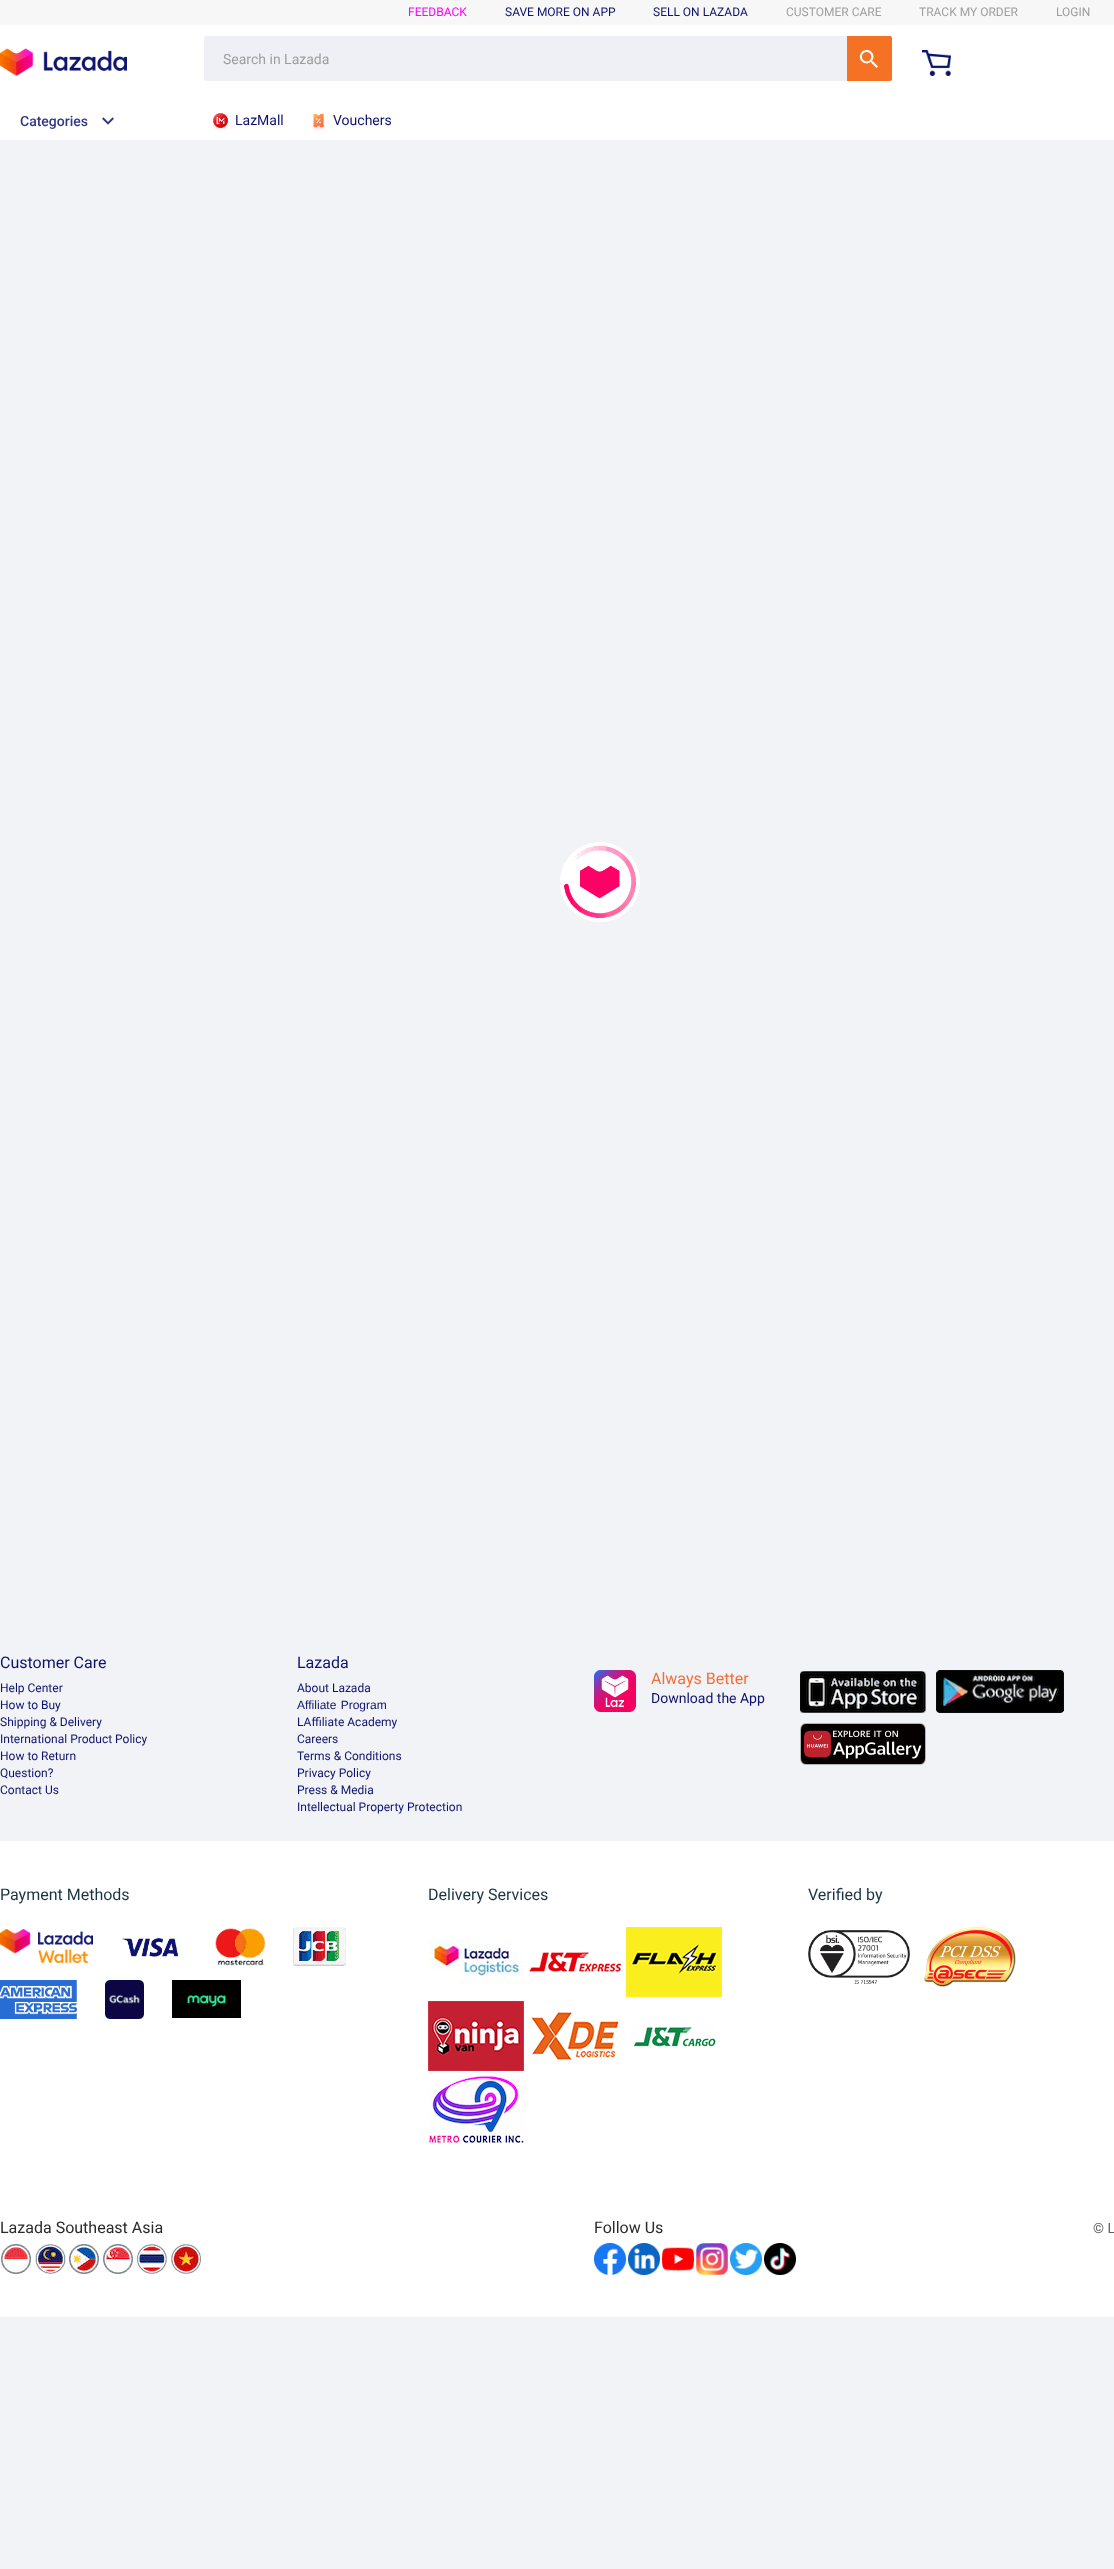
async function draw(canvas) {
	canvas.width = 1114;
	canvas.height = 2569;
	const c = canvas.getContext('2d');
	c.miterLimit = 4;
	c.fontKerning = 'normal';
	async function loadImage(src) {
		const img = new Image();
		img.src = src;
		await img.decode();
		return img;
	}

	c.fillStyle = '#f2f3f7';
	c.fillRect(0, 0, 1114, 2569);
	c.fillStyle = '#fff';
	c.fillRect(0, 25, 1114, 115);
	c.fillStyle = '#f7f7f7';
	c.fillRect(0, 0, 1114, 25);
	c.font = '12px Roboto';
	c.fillStyle = '#f0f';
	c.fillText('FEEDBACK', 408, 16);
	c.fillStyle = '#0f136d';
	c.fillText('SAVE MORE ON APP', 505, 16);
	c.fillText('SELL ON LAZADA', 653, 16);
	c.fillStyle = '#9e9e9e';
	for (const [text, x, y] of [
		['CUSTOMER CARE', 786, 16],
		['TRACK MY ORDER', 919, 16],
		['LOGIN', 1056, 16],
	]) {
		c.fillText(text, x, y);
	}
	c.drawImage(await loadImage('img1.png'), 0, 48, 127, 28);
	c.fillStyle = '#eff0f5';
	c.beginPath();
	c.roundRect(204, 36, 688, 45, 2);
	c.fill();
	c.font = '14px Roboto';
	c.fillStyle = '#9e9e9e';
	c.fillText('Search in Lazada', 223, 64);
	c.fillStyle = '#f57224';
	c.beginPath();
	c.roundRect(847, 36, 45, 45, [0, 2, 2, 0]);
	c.fill();
	c.drawImage(await loadImage('img2.png'), 859, 49, 19, 19);
	c.drawImage(await loadImage('img3.png'), 922, 50, 29, 26);
	c.font = '500 14px Roboto';
	c.fillStyle = '#333683';
	c.fillText('Categories', 20, 126);
	c.drawImage(await loadImage('img4.png'), 102, 117, 12, 8);
	c.drawImage(await loadImage('img5.png'), 212, 113, 17, 18);
	c.font = '14px Roboto';
	c.fillStyle = '#0f136d';
	c.fillText('LazMall', 235, 125);
	c.drawImage(await loadImage('img6.png'), 311, 113, 15, 18);
	c.fillText('Vouchers', 333, 125);
	c.drawImage(await loadImage('img7.png'), 560, 842, 80, 80);
	c.font = '16px Roboto';
	c.fillText('Customer Care', 0, 1668);
	c.font = '12px Roboto';
	for (const [text, x, y] of [
		['Help Center', 0, 1692],
		['How to Buy', 0, 1709],
		['Shipping & Delivery', 0, 1726],
		['International Product Policy', 0, 1743],
		['How to Return', 0, 1760],
		['Question?', 0, 1777],
		['Contact Us', 0, 1794],
	]) {
		c.fillText(text, x, y);
	}
	c.font = '16px Roboto';
	c.fillText('Lazada', 297, 1668);
	c.font = '12px Roboto';
	c.fillText('About Lazada', 297, 1692);
	c.wordSpacing = '1px';
	c.font = '12px Liberation Sans';
	c.fillText('Afﬁliate Program', 297, 1709);
	c.wordSpacing = '0px';
	c.font = '12px Roboto';
	for (const [text, x, y] of [
		['LAffiliate Academy', 297, 1726],
		['Careers', 297, 1743],
		['Terms & Conditions', 297, 1760],
		['Privacy Policy', 297, 1777],
		['Press & Media', 297, 1794],
		['Intellectual Property Protection', 297, 1811],
	]) {
		c.fillText(text, x, y);
	}
	c.drawImage(await loadImage('img8.png'), 594, 1670, 42, 42);
	c.font = '16px Roboto';
	c.fillStyle = '#f36f36';
	c.fillText('Always Better', 651, 1684);
	c.font = '14px Roboto';
	c.fillStyle = '#0f136d';
	c.fillText('Download the App', 651, 1703);
	c.drawImage(await loadImage('img9.png'), 800, 1671, 126, 42);
	c.drawImage(await loadImage('img10.png'), 936, 1670, 128, 43);
	c.drawImage(await loadImage('img11.png'), 800, 1723, 126, 42);
	c.fillStyle = '#fff';
	c.fillRect(0, 1841, 1114, 476);
	c.font = '16px Roboto';
	c.fillStyle = '#183544';
	c.fillText('Payment Methods', 0, 1900);
	c.drawImage(await loadImage('img12.png'), 0, 1929, 93, 34);
	c.drawImage(await loadImage('img13.png'), 122, 1938, 56, 19);
	c.drawImage(await loadImage('img14.png'), 215, 1928, 50, 38);
	c.drawImage(await loadImage('img15.png'), 293, 1927, 53, 39);
	c.drawImage(await loadImage('img16.png'), 0, 1980, 77, 39);
	c.drawImage(await loadImage('img17.png'), 105, 1980, 39, 39);
	c.drawImage(await loadImage('img18.png'), 172, 1980, 69, 38);
	c.fillText('Delivery Services', 428, 1900);
	c.drawImage(await loadImage('img19.png'), 428, 1939, 96, 45);
	c.drawImage(await loadImage('img20.png'), 529, 1952, 93, 20);
	c.drawImage(await loadImage('img21.png'), 626, 1927, 96, 70);
	c.drawImage(await loadImage('img22.png'), 428, 2001, 96, 70);
	c.drawImage(await loadImage('img23.png'), 531, 2012, 88, 48);
	c.drawImage(await loadImage('img24.png'), 633, 2027, 83, 20);
	c.drawImage(await loadImage('img25.png'), 429, 2076, 95, 67);
	c.fillText('Verified by', 808, 1900);
	c.drawImage(await loadImage('img26.png'), 808, 1930, 102, 54);
	c.drawImage(await loadImage('img27.png'), 924, 1927, 92, 60);
	c.fillStyle = '#2a2a2a';
	c.fillText('Lazada Southeast Asia', 0, 2233);
	c.drawImage(await loadImage('img28.png'), 1, 2244, 30, 30);
	c.drawImage(await loadImage('img29.png'), 35, 2244, 31, 30);
	c.drawImage(await loadImage('img30.png'), 69, 2244, 30, 30);
	c.drawImage(await loadImage('img31.png'), 103, 2244, 30, 30);
	c.drawImage(await loadImage('img32.png'), 136, 2244, 31, 30);
	c.drawImage(await loadImage('img33.png'), 171, 2244, 31, 30);
	c.fillText('Follow Us', 594, 2233);
	c.drawImage(await loadImage('img34.png'), 594, 2243, 32, 32);
	c.drawImage(await loadImage('img35.png'), 628, 2243, 32, 32);
	c.drawImage(await loadImage('img36.png'), 662, 2247, 32, 24);
	c.drawImage(await loadImage('img37.png'), 696, 2243, 32, 32);
	c.drawImage(await loadImage('img38.png'), 730, 2243, 32, 32);
	c.drawImage(await loadImage('img39.png'), 764, 2243, 32, 32);
	c.font = '14px Roboto';
	c.fillStyle = '#606060';
	c.fillText('© L', 1093, 2233);
}

draw(document.querySelector('canvas'));
